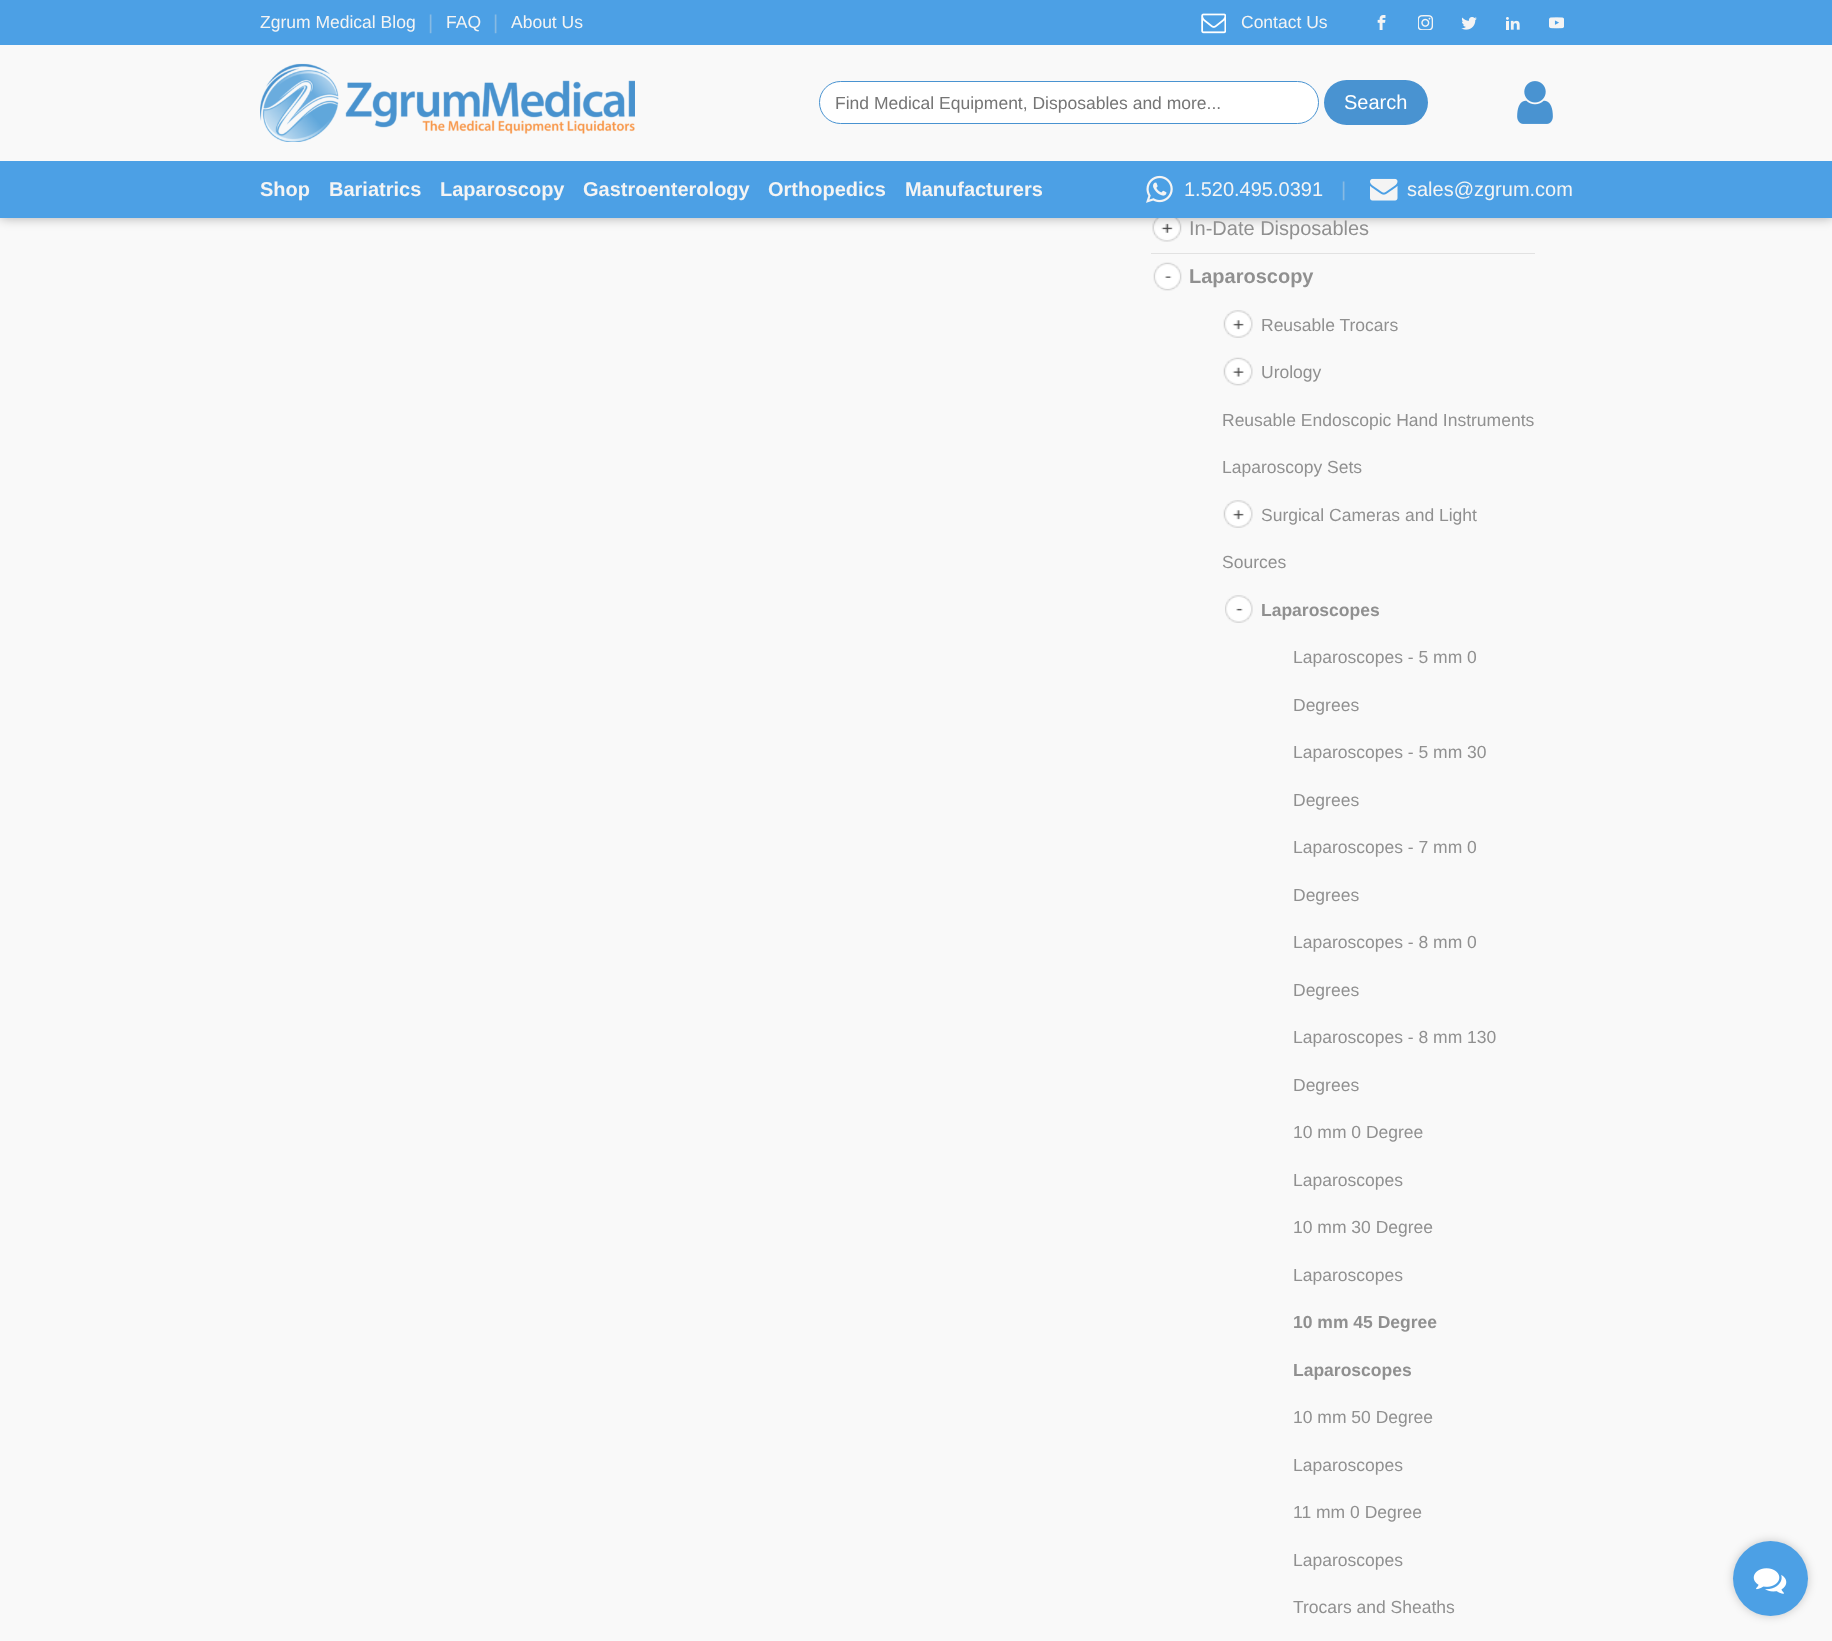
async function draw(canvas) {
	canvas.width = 1832;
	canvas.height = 1641;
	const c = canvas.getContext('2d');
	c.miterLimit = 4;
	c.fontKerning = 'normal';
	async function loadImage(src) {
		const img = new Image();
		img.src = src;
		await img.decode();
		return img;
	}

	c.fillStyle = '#f9f9f9';
	c.fillRect(0, 0, 1832, 1641);
	c.drawImage(await loadImage('img11.png'), 1152, 218, 30, 24);
	c.fillStyle = '#0000004d';
	c.filter = 'blur(6px)';
	c.beginPath();
	c.rect(0, 0, 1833, 218);
	c.fill();
	c.filter = 'none';
	c.fillStyle = '#f9f9f9';
	c.fillRect(0, 45, 1832, 116);
	c.fillStyle = '#4ca0e5';
	c.fillRect(0, 0, 1832, 45);
	c.font = '17.5px Liberation Sans';
	c.fillStyle = '#f4f4f4';
	c.fillText('Zgrum Medical Blog', 260, 28);
	c.font = '20px Liberation Sans';
	c.fillStyle = '#87bae3';
	c.fillText('|', 428, 29);
	c.font = '17.5px Liberation Sans';
	c.fillStyle = '#f4f4f4';
	c.fillText('FAQ', 446, 28);
	c.font = '20px Liberation Sans';
	c.fillStyle = '#87bae3';
	c.fillText('|', 493, 29);
	c.font = '17.5px Liberation Sans';
	c.fillStyle = '#f4f4f4';
	c.fillText('About Us', 511, 28);
	c.drawImage(await loadImage('img1.png'), 1201, 13, 25, 21);
	c.fillText('Contact Us', 1241, 28);
	c.drawImage(await loadImage('img2.png'), 1377, 15, 9, 15);
	c.drawImage(await loadImage('img3.png'), 1418, 15, 15, 15);
	c.drawImage(await loadImage('img4.png'), 1461, 17, 16, 13);
	c.drawImage(await loadImage('img5.png'), 1506, 17, 14, 13);
	c.drawImage(await loadImage('img6.png'), 1549, 17, 15, 12);
	c.drawImage(await loadImage('img7.png'), 260, 63, 375, 79);
	c.fillStyle = '#fff';
	c.beginPath();
	c.roundRect(819.5, 81.5, 499, 42, 21);
	c.fill();
	c.strokeStyle = '#4993d1';
	c.stroke();
	c.fillStyle = '#757575';
	c.fillText('Find Medical Equipment, Disposables and more...', 835, 109);
	c.fillStyle = '#4993d1';
	c.beginPath();
	c.roundRect(1324, 80, 104, 45, 22.5);
	c.fill();
	c.font = '20px Liberation Sans';
	c.fillStyle = '#fff';
	c.fillText('Search', 1344, 109);
	c.drawImage(await loadImage('img8.png'), 1517, 81, 36, 43);
	c.fillStyle = '#4ca0e5';
	c.fillRect(0, 161, 1832, 57);
	c.font = 'bold 20px Liberation Sans';
	c.fillStyle = '#f4f4f4';
	for (const [text, x, y] of [
		['Shop', 260, 196],
		['Bariatrics', 329, 196],
		['Laparoscopy', 440, 196],
		['Gastroenterology', 583, 196],
		['Orthopedics', 768, 196],
		['Manufacturers', 905, 196],
	]) {
		c.fillText(text, x, y);
	}
	c.drawImage(await loadImage('img9.png'), 1146, 175, 27, 28);
	c.font = '20px Liberation Sans';
	c.fillText('1.520.495.0391', 1184, 196);
	c.fillStyle = '#87bae3';
	c.fillText('|', 1341, 196);
	c.drawImage(await loadImage('img10.png'), 1370, 178, 28, 23);
	c.fillStyle = '#f4f4f4';
	c.fillText('sales@zgrum.com', 1407, 196);
	c.fillStyle = '#e2e2e2';
	c.fillRect(1151, 253, 384, 1);
	c.fillStyle = '#909090';
	c.fillText('In-Date Disposables', 1189, 235);
	c.drawImage(await loadImage('img12.png'), 1153, 262, 29, 29);
	c.font = 'bold 20px Liberation Sans';
	c.fillText('Laparoscopy', 1189, 283);
	c.drawImage(await loadImage('img13.png'), 1223, 310, 30, 28);
	c.font = '17.5px Liberation Sans';
	c.fillText('Reusable Trocars', 1261, 331);
	c.drawImage(await loadImage('img14.png'), 1223, 357, 30, 29);
	for (const [text, x, y] of [
		['Urology', 1261, 378],
		['Reusable Endoscopic Hand Instruments', 1222, 426],
		['Laparoscopy Sets', 1222, 473],
	]) {
		c.fillText(text, x, y);
	}
	c.drawImage(await loadImage('img13.png'), 1223, 500, 30, 28);
	c.fillText('Surgical Cameras and Light', 1261, 521);
	c.fillText('Sources', 1222, 568);
	c.drawImage(await loadImage('img15.png'), 1225, 595, 28, 28);
	c.font = 'bold 17.5px Liberation Sans';
	c.fillText('Laparoscopes', 1261, 616);
	c.font = '17.5px Liberation Sans';
	for (const [text, x, y] of [
		['Laparoscopes - 5 mm 0', 1293, 663],
		['Degrees', 1293, 711],
		['Laparoscopes - 5 mm 30', 1293, 758],
		['Degrees', 1293, 806],
		['Laparoscopes - 7 mm 0', 1293, 853],
		['Degrees', 1293, 901],
		['Laparoscopes - 8 mm 0', 1293, 948],
		['Degrees', 1293, 996],
		['Laparoscopes - 8 mm 130', 1293, 1043],
		['Degrees', 1293, 1091],
		['10 mm 0 Degree', 1293, 1138],
		['Laparoscopes', 1293, 1186],
		['10 mm 30 Degree', 1293, 1233],
		['Laparoscopes', 1293, 1281],
	]) {
		c.fillText(text, x, y);
	}
	c.font = 'bold 17.5px Liberation Sans';
	c.fillText('10 mm 45 Degree', 1293, 1328);
	c.fillText('Laparoscopes', 1293, 1376);
	c.font = '17.5px Liberation Sans';
	for (const [text, x, y] of [
		['10 mm 50 Degree', 1293, 1423],
		['Laparoscopes', 1293, 1471],
		['11 mm 0 Degree', 1293, 1518],
		['Laparoscopes', 1293, 1566],
		['Trocars and Sheaths', 1293, 1613],
	]) {
		c.fillText(text, x, y);
	}
	c.fillStyle = '#00000033';
	c.filter = 'blur(5px)';
	c.beginPath();
	c.roundRect(1733, 1541, 75, 75, 37.5);
	c.fill();
	c.filter = 'none';
	c.fillStyle = '#4ca0e5';
	c.beginPath();
	c.arc(1770.5, 1578.5, 37.5, 0, 2 * Math.PI);
	c.fill();
	c.drawImage(await loadImage('img16.png'), 1753, 1568, 34, 26);
}

draw(document.querySelector('canvas'));
